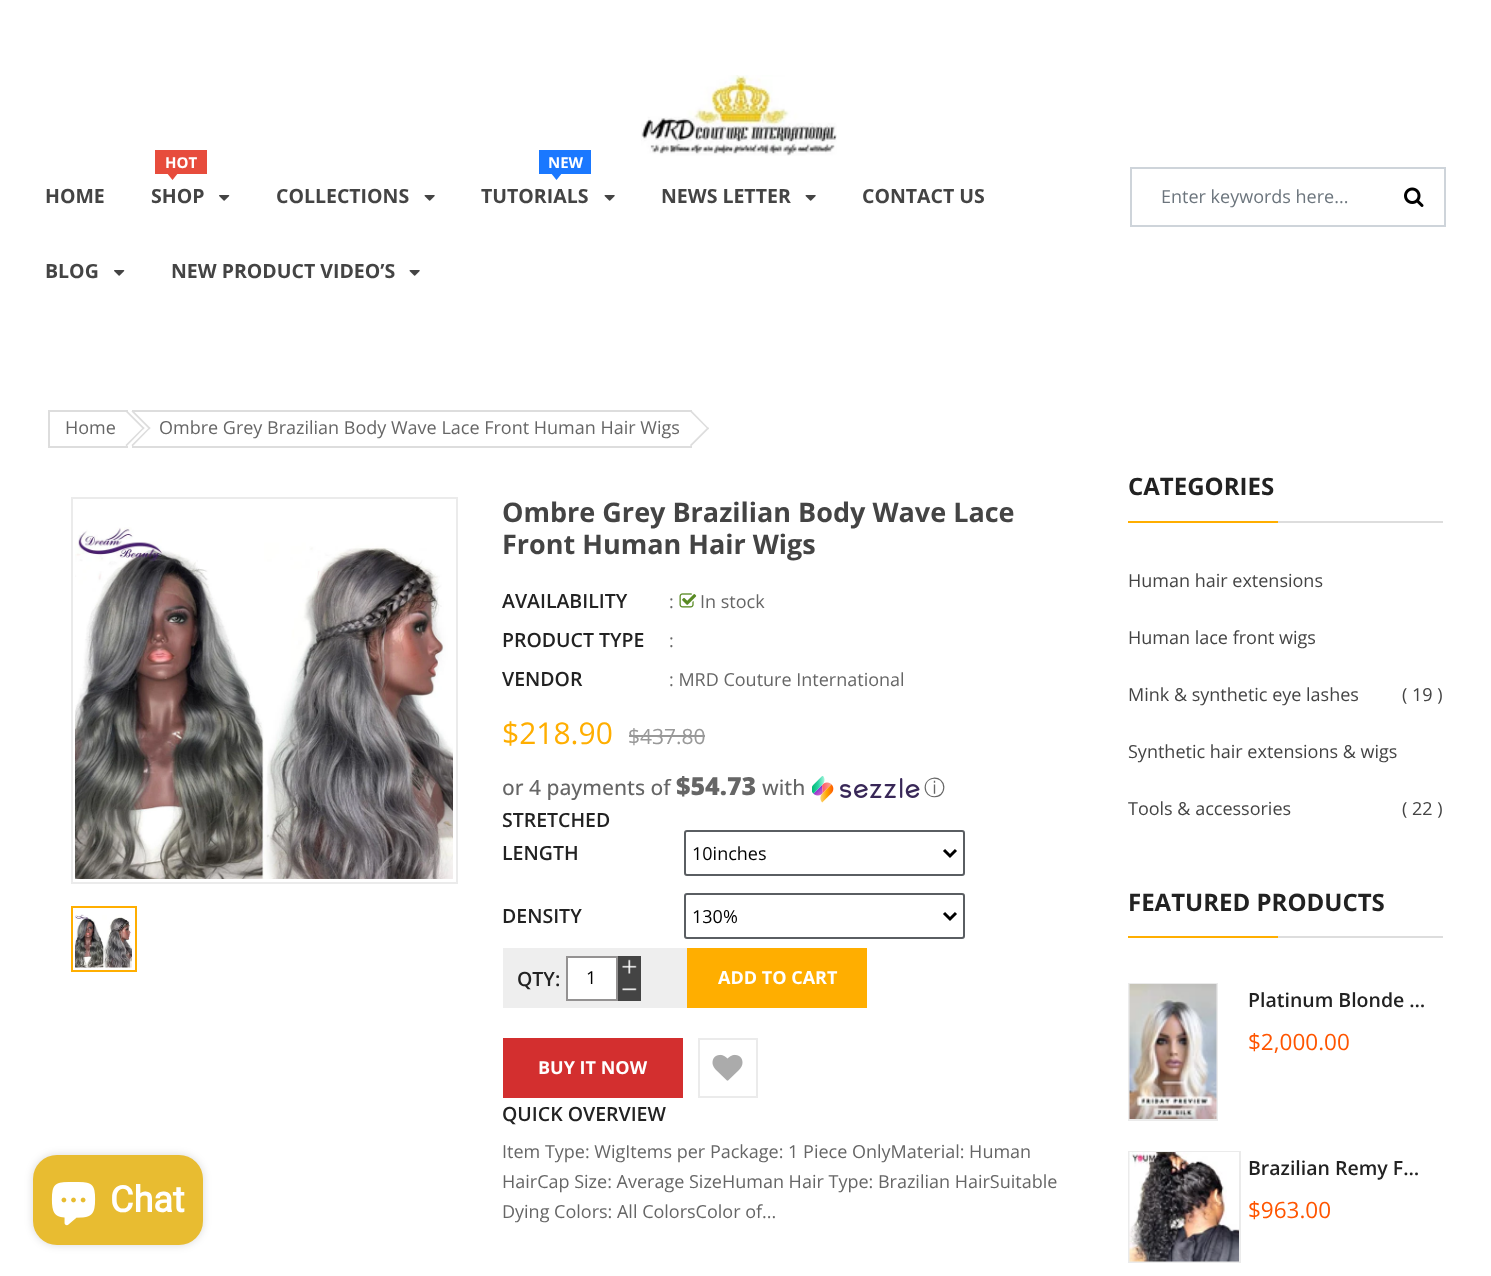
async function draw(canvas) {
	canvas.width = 1491;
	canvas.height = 1276;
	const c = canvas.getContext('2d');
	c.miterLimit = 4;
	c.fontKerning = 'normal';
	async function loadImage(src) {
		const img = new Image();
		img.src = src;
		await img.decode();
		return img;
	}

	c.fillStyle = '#fff';
	c.fillRect(0, 0, 1491, 1276);
	c.drawImage(await loadImage('img1.png'), 641, 75, 196, 81);
	c.font = 'bold 19.5px Open Sans';
	c.fillStyle = '#444';
	c.fillText('HOME', 45, 203);
	c.fillStyle = '#e74c3c';
	c.fillRect(155, 150, 52, 24);
	c.font = 'bold 15px Open Sans';
	c.fillStyle = '#fff';
	c.fillText('HOT', 165, 168);
	c.fillStyle = '#e74c3c';
	c.beginPath();
	c.moveTo(166.5, 172.5);
	c.lineTo(178.5, 172.5);
	c.lineTo(172.5, 180);
	c.closePath();
	c.fill();
	c.font = 'bold 19.5px Open Sans';
	c.fillStyle = '#444';
	c.fillText('SHOP', 151, 203);
	c.drawImage(await loadImage('img2.png'), 219, 195, 11, 6);
	c.fillText('COLLECTIONS', 276, 203);
	c.drawImage(await loadImage('img3.png'), 424, 195, 11, 6);
	c.fillStyle = '#1a78ff';
	c.fillRect(539, 150, 52, 24);
	c.font = 'bold 15px Open Sans';
	c.fillStyle = '#fff';
	c.fillText('NEW', 548, 168);
	c.fillStyle = '#1a78ff';
	c.beginPath();
	c.moveTo(550.5, 172.5);
	c.lineTo(562.5, 172.5);
	c.lineTo(556.5, 180);
	c.closePath();
	c.fill();
	c.font = 'bold 19.5px Open Sans';
	c.fillStyle = '#444';
	c.fillText('TUTORIALS', 481, 203);
	c.drawImage(await loadImage('img3.png'), 604, 195, 11, 6);
	c.fillText('NEWS LETTER', 661, 203);
	c.drawImage(await loadImage('img3.png'), 805, 195, 11, 6);
	c.fillText('CONTACT US', 862, 203);
	c.fillText('BLOG', 45, 278);
	c.drawImage(await loadImage('img2.png'), 114, 270, 11, 6);
	c.fillText('NEW PRODUCT VIDEO’S', 171, 278);
	c.drawImage(await loadImage('img3.png'), 409, 270, 11, 6);
	c.strokeStyle = '#ced4da';
	c.lineWidth = 2;
	c.strokeRect(1131, 168, 314, 58);
	c.font = '18px Open Sans';
	c.fillStyle = '#6c757d';
	c.fillText('Enter keywords here...', 1161, 203);
	c.drawImage(await loadImage('img4.png'), 1404, 187, 20, 20);
	for (const [x, y, w, h, color] of [
		[48, 410, 80, 2, '#ddd'],
		[48, 446, 80, 2, '#ddd'],
		[48, 410, 2, 37, '#ddd'],
	]) {
		c.fillStyle = color;
		c.fillRect(x, y, w, h);
	}
	c.fillStyle = '#666';
	c.fillText('Home', 65, 434);
	c.fillStyle = '#ddd';
	c.beginPath();
	c.moveTo(126.5, 410);
	c.lineTo(144.5, 428);
	c.lineTo(143.5, 429.5);
	c.lineTo(125.5, 411.5);
	c.closePath();
	c.fill();
	c.beginPath();
	c.moveTo(143.5, 427);
	c.lineTo(144.5, 428);
	c.lineTo(126.5, 446.5);
	c.lineTo(125.5, 445);
	c.closePath();
	c.fill();
	c.fillRect(132, 410, 560, 2);
	c.fillRect(132, 446, 560, 2);
	c.beginPath();
	c.moveTo(132.5, 410);
	c.lineTo(150.5, 428);
	c.lineTo(149.5, 429.5);
	c.lineTo(131.5, 411.5);
	c.closePath();
	c.fill();
	c.beginPath();
	c.moveTo(149.5, 427);
	c.lineTo(150.5, 428);
	c.lineTo(132.5, 446.5);
	c.lineTo(131.5, 445);
	c.closePath();
	c.fill();
	c.fillStyle = '#666';
	c.fillText('Ombre Grey Brazilian Body Wave Lace Front Human Hair Wigs', 159, 434);
	c.fillStyle = '#ddd';
	c.beginPath();
	c.moveTo(691, 410);
	c.lineTo(709, 428.5);
	c.lineTo(708, 429.5);
	c.lineTo(690, 411.5);
	c.closePath();
	c.fill();
	c.beginPath();
	c.moveTo(708, 427);
	c.lineTo(709, 428.5);
	c.lineTo(691, 446.5);
	c.lineTo(690, 445);
	c.closePath();
	c.fill();
	c.strokeStyle = '#ebebeb';
	c.strokeRect(72, 498, 385, 385);
	c.drawImage(await loadImage('img5.png'), 75, 527, 378, 352);
	c.strokeStyle = '#ffae00';
	c.strokeRect(72, 907, 64, 64);
	c.drawImage(await loadImage('img6.png'), 75, 914, 57, 54);
	c.font = 'bold 27px Open Sans';
	c.fillStyle = '#444';
	c.fillText('Ombre Grey Brazilian Body Wave Lace', 502, 522);
	c.fillText('Front Human Hair Wigs', 502, 554);
	c.font = '600 19.5px Open Sans';
	c.fillStyle = '#222';
	c.fillText('AVAILABILITY', 502, 608);
	c.font = '18px Open Sans';
	c.fillStyle = '#666';
	c.fillText(':', 669, 608);
	c.drawImage(await loadImage('img7.png'), 679, 593, 18, 15);
	c.fillText('In stock', 700, 608);
	c.font = '600 19.5px Open Sans';
	c.fillStyle = '#222';
	c.fillText('PRODUCT TYPE', 502, 647);
	c.font = '18px Open Sans';
	c.fillStyle = '#666';
	c.fillText(':', 669, 647);
	c.font = '600 19.5px Open Sans';
	c.fillStyle = '#222';
	c.fillText('VENDOR', 502, 686);
	c.font = '18px Open Sans';
	c.fillStyle = '#666';
	c.fillText(': MRD Couture International', 669, 686);
	c.font = '30px Open Sans';
	c.fillStyle = '#ffae00';
	c.fillText('$218.90', 502, 744);
	c.font = '21px Open Sans';
	c.fillStyle = '#999';
	c.fillText('$437.80', 628, 744);
	c.fillRect(629, 735, 76, 2);
	c.font = '500 21px Open Sans';
	c.fillStyle = '#666';
	c.fillText('or 4 payments of', 502, 795);
	c.font = '800 25px Open Sans';
	c.fillText('$54.73', 676, 795);
	c.font = '500 21px Open Sans';
	c.fillText('with', 762, 795);
	c.drawImage(await loadImage('img8.png'), 812, 776, 108, 27);
	c.font = '500 21px WenQuanYi Zen Hei';
	c.fillText('ⓘ', 924, 795);
	c.font = '600 19.5px Open Sans';
	c.fillStyle = '#222';
	c.fillText('STRETCHED', 502, 827);
	c.fillText('LENGTH', 502, 860);
	c.beginPath();
	c.roundRect(685, 831, 279, 44, 2);
	c.strokeStyle = '#5a5e62';
	c.stroke();
	c.beginPath();
	c.moveTo(944, 850);
	c.lineTo(950, 856);
	c.lineTo(956, 850);
	c.strokeStyle = '#000';
	c.lineWidth = 3;
	c.stroke();
	c.font = '18px Open Sans';
	c.fillStyle = '#000';
	c.fillText('10inches', 692, 860);
	c.font = '600 19.5px Open Sans';
	c.fillStyle = '#222';
	c.fillText('DENSITY', 502, 923);
	c.beginPath();
	c.roundRect(685, 894, 279, 44, 2);
	c.strokeStyle = '#5a5e62';
	c.lineWidth = 2;
	c.stroke();
	c.beginPath();
	c.moveTo(944, 913);
	c.lineTo(950, 919);
	c.lineTo(956, 913);
	c.strokeStyle = '#000';
	c.lineWidth = 3;
	c.stroke();
	c.font = '18px Open Sans';
	c.fillStyle = '#000';
	c.fillText('130%', 692, 923);
	c.fillStyle = '#eee';
	c.fillRect(503, 948, 184, 60);
	c.font = '600 19.5px Open Sans';
	c.fillStyle = '#222';
	c.fillText('QTY:', 517, 986);
	c.fillStyle = '#fff';
	c.beginPath();
	c.rect(567, 957, 50, 43);
	c.fill();
	c.strokeStyle = '#949292';
	c.lineWidth = 2;
	c.stroke();
	c.font = '18px Open Sans';
	c.fillStyle = '#000';
	c.fillText('1', 586, 984);
	c.fillStyle = '#444';
	c.fillRect(618, 956, 23, 45);
	c.drawImage(await loadImage('img9.png'), 622, 959, 15, 15);
	c.drawImage(await loadImage('img10.png'), 622, 988, 15, 3);
	c.fillStyle = '#ffae00';
	c.fillRect(687, 948, 180, 60);
	c.font = 'bold 18px Open Sans';
	c.fillStyle = '#fff';
	c.fillText('ADD TO CART', 718, 984);
	c.fillStyle = '#d32f2f';
	c.fillRect(503, 1038, 180, 60);
	c.fillStyle = '#fff';
	c.fillText('BUY IT NOW', 538, 1074);
	c.strokeStyle = '#ebebeb';
	c.strokeRect(699, 1039, 58, 58);
	c.drawImage(await loadImage('img11.png'), 712, 1054, 31, 27);
	c.font = '600 19.5px Open Sans';
	c.fillStyle = '#222';
	c.fillText('QUICK OVERVIEW', 502, 1121);
	c.font = '18px Open Sans';
	c.fillStyle = '#666';
	for (const [text, x, y] of [
		['Item Type: WigItems per Package: 1 Piece OnlyMaterial: Human', 502, 1158],
		['HairCap Size: Average SizeHuman Hair Type: Brazilian HairSuitable', 502, 1188],
		['Dying Colors: All ColorsColor of...', 502, 1218],
	]) {
		c.fillText(text, x, y);
	}
	c.fillStyle = '#ddd';
	c.fillRect(1278, 521, 165, 2);
	c.font = 'bold 24px Open Sans';
	c.fillStyle = '#222';
	c.fillText('CATEGORIES', 1128, 495);
	c.fillStyle = '#ffae00';
	c.fillRect(1128, 521, 150, 2);
	c.font = '18px Open Sans';
	c.fillStyle = '#444';
	for (const [text, x, y] of [
		['Human hair extensions', 1128, 587],
		['Human lace front wigs', 1128, 644],
		['Mink & synthetic eye lashes', 1128, 701],
		['( 19 )', 1402, 701],
		['Synthetic hair extensions & wigs', 1128, 758],
		['Tools & accessories', 1128, 815],
		['( 22 )', 1402, 815],
	]) {
		c.fillText(text, x, y);
	}
	c.fillStyle = '#ddd';
	c.fillRect(1278, 936, 165, 2);
	c.font = 'bold 24px Open Sans';
	c.fillStyle = '#222';
	c.fillText('FEATURED PRODUCTS', 1128, 911);
	c.fillStyle = '#ffae00';
	c.fillRect(1128, 936, 150, 2);
	c.strokeRect(1129, 984, 88, 136);
	c.drawImage(await loadImage('img12.png'), 1129, 984, 88, 135);
	c.font = '600 19.5px Open Sans';
	c.fillStyle = '#222';
	c.fillText('Platinum Blonde …', 1248, 1007);
	c.font = '22.5px Open Sans';
	c.fillStyle = '#f50';
	c.fillText('$2,000.00', 1248, 1050);
	c.strokeRect(1129, 1152, 111, 110);
	c.drawImage(await loadImage('img13.png'), 1129, 1152, 110, 110);
	c.font = '600 19.5px Open Sans';
	c.fillStyle = '#222';
	c.fillText('Brazilian Remy F…', 1248, 1175);
	c.font = '22.5px Open Sans';
	c.fillStyle = '#f50';
	c.fillText('$963.00', 1248, 1218);
	c.fillStyle = '#00000026';
	c.filter = 'blur(4px)';
	c.beginPath();
	c.roundRect(33, 1155, 170, 90, 24);
	c.fill();
	c.filter = 'none';
	c.fillStyle = '#e8bc31';
	c.beginPath();
	c.roundRect(33, 1155, 170, 90, 24);
	c.fill();
	c.drawImage(await loadImage('img14.png'), 51, 1182, 45, 44);
	c.font = 'bold 36px Roboto';
	c.fillStyle = '#fff';
	c.fillText('Chat', 110, 1212);
}

draw(document.querySelector('canvas'));
